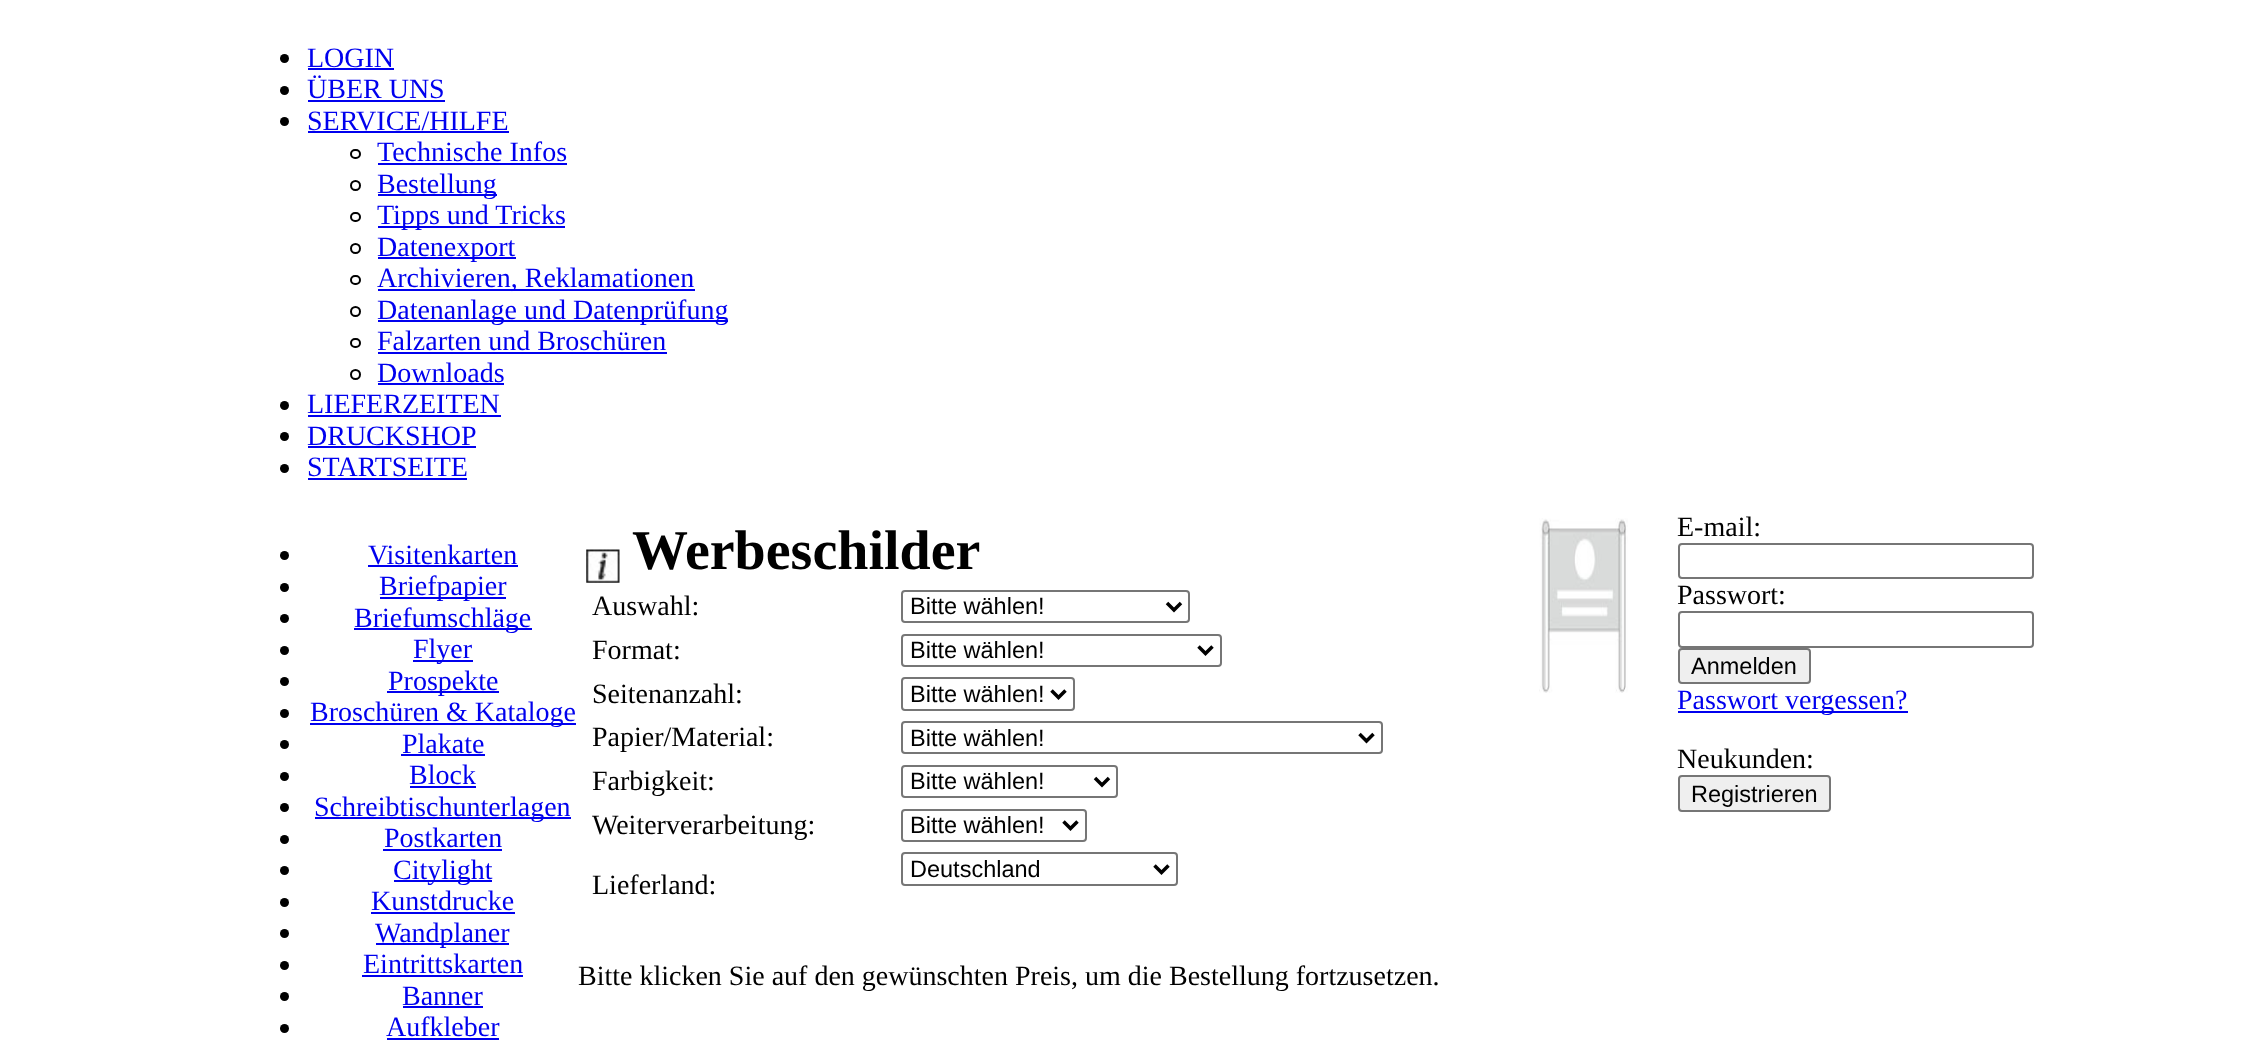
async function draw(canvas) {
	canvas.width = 2255;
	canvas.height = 1044;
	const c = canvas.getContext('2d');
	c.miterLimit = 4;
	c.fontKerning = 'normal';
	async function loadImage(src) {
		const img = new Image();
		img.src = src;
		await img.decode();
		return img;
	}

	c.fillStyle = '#fff';
	c.fillRect(0, 0, 2255, 1044);
	c.fillStyle = '#000';
	c.beginPath();
	c.arc(284.5, 58.5, 4.5, 0, 2 * Math.PI);
	c.fill();
	c.font = '28px Liberation Serif';
	c.fillStyle = '#00e';
	c.fillText('LOGIN', 307, 67);
	c.fillRect(308, 68, 86, 2);
	c.fillStyle = '#000';
	c.beginPath();
	c.arc(284.5, 90.5, 4.5, 0, 2 * Math.PI);
	c.fill();
	c.fillStyle = '#00e';
	c.fillText('ÜBER UNS', 307, 98);
	c.fillRect(308, 100, 137, 2);
	c.fillStyle = '#000';
	c.beginPath();
	c.arc(284.5, 121.5, 4.5, 0, 2 * Math.PI);
	c.fill();
	c.fillStyle = '#00e';
	c.fillText('SERVICE/HILFE', 307, 130);
	c.fillRect(308, 131, 201, 2);
	c.beginPath();
	c.roundRect(351, 150, 9, 8, 4);
	c.strokeStyle = '#000';
	c.lineWidth = 2;
	c.stroke();
	c.fillText('Technische Infos', 377, 161);
	c.fillRect(378, 163, 189, 2);
	c.beginPath();
	c.arc(355.5, 185.5, 4.5, 0, 2 * Math.PI);
	c.stroke();
	c.fillRect(378, 194, 119, 2);
	c.fillText('Bestellung', 377, 193);
	c.beginPath();
	c.roundRect(351, 213, 9, 8, 4);
	c.stroke();
	c.fillRect(378, 226, 187, 2);
	c.fillText('Tipps und Tricks', 377, 224);
	c.beginPath();
	c.arc(355.5, 248.5, 4.5, 0, 2 * Math.PI);
	c.stroke();
	c.fillRect(378, 257, 138, 2);
	c.fillText('Datenexport', 377, 256);
	c.beginPath();
	c.roundRect(351, 276, 9, 8, 4);
	c.stroke();
	c.fillRect(378, 289, 317, 2);
	c.fillText('Archivieren, Reklamationen', 377, 287);
	c.beginPath();
	c.arc(355.5, 311.5, 4.5, 0, 2 * Math.PI);
	c.stroke();
	c.fillRect(378, 320, 350, 2);
	c.fillText('Datenanlage und Datenprüfung', 377, 319);
	c.beginPath();
	c.roundRect(351, 339, 9, 8, 4);
	c.stroke();
	c.fillText('Falzarten und Broschüren', 377, 350);
	c.fillRect(378, 352, 289, 2);
	c.beginPath();
	c.arc(355.5, 374.5, 4.5, 0, 2 * Math.PI);
	c.stroke();
	c.fillText('Downloads', 377, 382);
	c.fillRect(378, 383, 126, 2);
	c.fillStyle = '#000';
	c.beginPath();
	c.arc(284.5, 405.5, 4.5, 0, 2 * Math.PI);
	c.fill();
	c.fillStyle = '#00e';
	c.fillText('LIEFERZEITEN', 307, 413);
	c.fillRect(308, 415, 193, 2);
	c.fillStyle = '#000';
	c.beginPath();
	c.arc(284.5, 436.5, 4.5, 0, 2 * Math.PI);
	c.fill();
	c.fillStyle = '#00e';
	c.fillText('DRUCKSHOP', 307, 445);
	c.fillRect(308, 446, 168, 2);
	c.fillStyle = '#000';
	c.beginPath();
	c.arc(284.5, 468.5, 4.5, 0, 2 * Math.PI);
	c.fill();
	c.fillStyle = '#00e';
	c.fillText('STARTSEITE', 307, 476);
	c.fillRect(308, 478, 159, 2);
	c.fillStyle = '#000';
	c.beginPath();
	c.arc(284.5, 555.5, 4.5, 0, 2 * Math.PI);
	c.fill();
	c.fillStyle = '#00e';
	c.fillText('Visitenkarten', 368, 564);
	c.fillRect(368, 565, 150, 2);
	c.fillStyle = '#000';
	c.beginPath();
	c.arc(284.5, 587.5, 4.5, 0, 2 * Math.PI);
	c.fill();
	c.fillStyle = '#00e';
	c.fillRect(380, 597, 126, 2);
	c.fillText('Briefpapier', 379, 595);
	c.fillStyle = '#000';
	c.beginPath();
	c.arc(284.5, 618.5, 4.5, 0, 2 * Math.PI);
	c.fill();
	c.fillStyle = '#00e';
	c.fillRect(354, 628, 178, 2);
	c.fillText('Briefumschläge', 354, 627);
	c.fillStyle = '#000';
	c.beginPath();
	c.arc(284.5, 650.5, 4.5, 0, 2 * Math.PI);
	c.fill();
	c.fillStyle = '#00e';
	c.fillRect(413, 660, 60, 2);
	c.fillText('Flyer', 413, 658);
	c.fillStyle = '#000';
	c.beginPath();
	c.arc(284.5, 681.5, 4.5, 0, 2 * Math.PI);
	c.fill();
	c.fillStyle = '#00e';
	c.fillRect(387, 691, 112, 2);
	c.fillText('Prospekte', 388, 690);
	c.fillStyle = '#000';
	c.beginPath();
	c.arc(284.5, 713.5, 4.5, 0, 2 * Math.PI);
	c.fill();
	c.fillStyle = '#00e';
	c.fillRect(310, 723, 266, 2);
	c.fillText('Broschüren & Kataloge', 310, 721);
	c.fillStyle = '#000';
	c.beginPath();
	c.arc(284.5, 744.5, 4.5, 0, 2 * Math.PI);
	c.fill();
	c.fillStyle = '#00e';
	c.fillText('Plakate', 402, 753);
	c.fillRect(401, 754, 84, 2);
	c.fillStyle = '#000';
	c.beginPath();
	c.arc(284.5, 776.5, 4.5, 0, 2 * Math.PI);
	c.fill();
	c.fillStyle = '#00e';
	c.fillText('Block', 409, 784);
	c.fillRect(410, 786, 66, 2);
	c.fillStyle = '#000';
	c.beginPath();
	c.arc(284.5, 807.5, 4.5, 0, 2 * Math.PI);
	c.fill();
	c.fillStyle = '#00e';
	c.fillRect(315, 817, 256, 2);
	c.fillText('Schreibtischunterlagen', 314, 816);
	c.fillStyle = '#000';
	c.beginPath();
	c.arc(284.5, 839.5, 4.5, 0, 2 * Math.PI);
	c.fill();
	c.fillStyle = '#00e';
	c.fillText('Postkarten', 384, 847);
	c.fillRect(383, 849, 119, 2);
	c.fillStyle = '#000';
	c.beginPath();
	c.arc(284.5, 870.5, 4.5, 0, 2 * Math.PI);
	c.fill();
	c.fillStyle = '#00e';
	c.fillRect(394, 880, 98, 2);
	c.fillText('Citylight', 393, 879);
	c.fillStyle = '#000';
	c.beginPath();
	c.arc(284.5, 902.5, 4.5, 0, 2 * Math.PI);
	c.fill();
	c.fillStyle = '#00e';
	c.fillText('Kunstdrucke', 371, 910);
	c.fillRect(371, 912, 144, 2);
	c.fillStyle = '#000';
	c.beginPath();
	c.arc(284.5, 933.5, 4.5, 0, 2 * Math.PI);
	c.fill();
	c.fillStyle = '#00e';
	c.fillRect(376, 943, 133, 2);
	c.fillText('Wandplaner', 375, 942);
	c.fillStyle = '#000';
	c.beginPath();
	c.arc(284.5, 965.5, 4.5, 0, 2 * Math.PI);
	c.fill();
	c.fillStyle = '#00e';
	c.fillText('Eintrittskarten', 363, 973);
	c.fillRect(362, 975, 161, 2);
	c.fillStyle = '#000';
	c.beginPath();
	c.arc(284.5, 996.5, 4.5, 0, 2 * Math.PI);
	c.fill();
	c.fillStyle = '#00e';
	c.fillText('Banner', 402, 1005);
	c.fillRect(403, 1006, 80, 2);
	c.fillStyle = '#000';
	c.beginPath();
	c.arc(284.5, 1028.5, 4.5, 0, 2 * Math.PI);
	c.fill();
	c.fillStyle = '#00e';
	c.fillText('Aufkleber', 386, 1036);
	c.fillRect(387, 1038, 112, 2);
	c.drawImage(await loadImage('img1.png'), 586, 549, 34, 34);
	c.font = 'bold 56px Liberation Serif';
	c.fillStyle = '#000';
	c.fillText('Werbeschilder', 632, 569);
	c.font = '28px Liberation Serif';
	c.fillText('Auswahl:', 592, 615);
	c.beginPath();
	c.roundRect(902, 591, 287, 31, 3);
	c.strokeStyle = '#767676';
	c.stroke();
	c.beginPath();
	c.moveTo(1167, 603);
	c.lineTo(1174, 610);
	c.lineTo(1181, 603);
	c.strokeStyle = '#000';
	c.lineWidth = 3.5;
	c.stroke();
	c.font = '23.5px Liberation Sans';
	c.fillText('Bitte wählen!', 910, 614);
	c.font = '28px Liberation Serif';
	c.fillText('Format:', 592, 659);
	c.beginPath();
	c.roundRect(902, 635, 319, 31, 3);
	c.strokeStyle = '#767676';
	c.lineWidth = 2;
	c.stroke();
	c.beginPath();
	c.moveTo(1198.5, 646.5);
	c.lineTo(1205.5, 653.5);
	c.lineTo(1212.5, 646.5);
	c.strokeStyle = '#000';
	c.lineWidth = 3.5;
	c.stroke();
	c.font = '23.5px Liberation Sans';
	c.fillText('Bitte wählen!', 910, 658);
	c.font = '28px Liberation Serif';
	c.fillText('Seitenanzahl:', 592, 703);
	c.beginPath();
	c.roundRect(902, 678, 172, 32, 3);
	c.strokeStyle = '#767676';
	c.lineWidth = 2;
	c.stroke();
	c.beginPath();
	c.moveTo(1051.5, 690.5);
	c.lineTo(1058.5, 697.5);
	c.lineTo(1065.5, 690.5);
	c.strokeStyle = '#000';
	c.lineWidth = 3.5;
	c.stroke();
	c.font = '23.5px Liberation Sans';
	c.fillText('Bitte wählen!', 910, 702);
	c.font = '28px Liberation Serif';
	c.fillText('Papier/Material:', 592, 746);
	c.beginPath();
	c.roundRect(902, 722, 480, 31, 3);
	c.strokeStyle = '#767676';
	c.lineWidth = 2;
	c.stroke();
	c.beginPath();
	c.moveTo(1359.5, 734);
	c.lineTo(1366.5, 741);
	c.lineTo(1373.5, 734);
	c.strokeStyle = '#000';
	c.lineWidth = 3.5;
	c.stroke();
	c.font = '23.5px Liberation Sans';
	c.fillText('Bitte wählen!', 910, 746);
	c.font = '28px Liberation Serif';
	c.fillText('Farbigkeit:', 592, 790);
	c.beginPath();
	c.roundRect(902, 766, 215, 31, 3);
	c.strokeStyle = '#767676';
	c.lineWidth = 2;
	c.stroke();
	c.beginPath();
	c.moveTo(1095, 778);
	c.lineTo(1102, 785);
	c.lineTo(1109, 778);
	c.strokeStyle = '#000';
	c.lineWidth = 3.5;
	c.stroke();
	c.font = '23.5px Liberation Sans';
	c.fillText('Bitte wählen!', 910, 789);
	c.font = '28px Liberation Serif';
	c.fillText('Weiterverarbeitung:', 592, 834);
	c.beginPath();
	c.roundRect(902, 810, 184, 31, 3);
	c.strokeStyle = '#767676';
	c.lineWidth = 2;
	c.stroke();
	c.beginPath();
	c.moveTo(1063.5, 821.5);
	c.lineTo(1070.5, 828.5);
	c.lineTo(1077.5, 821.5);
	c.strokeStyle = '#000';
	c.lineWidth = 3.5;
	c.stroke();
	c.font = '23.5px Liberation Sans';
	c.fillText('Bitte wählen!', 910, 833);
	c.beginPath();
	c.roundRect(902, 853, 275, 32, 3);
	c.strokeStyle = '#767676';
	c.lineWidth = 2;
	c.stroke();
	c.beginPath();
	c.moveTo(1154.5, 865.5);
	c.lineTo(1161.5, 872.5);
	c.lineTo(1168.5, 865.5);
	c.strokeStyle = '#000';
	c.lineWidth = 3.5;
	c.stroke();
	c.fillText('Deutschland', 910, 877);
	c.font = '28px Liberation Serif';
	c.fillText('Lieferland:', 592, 894);
	c.drawImage(await loadImage('img2.png'), 1539, 518, 89, 175);
	c.fillText('Bitte klicken Sie auf den gewünschten Preis, um die Bestellung fortzusetzen.', 578, 985);
	c.fillText('E-mail:', 1677, 536);
	c.beginPath();
	c.roundRect(1679, 544, 354, 34, 3);
	c.strokeStyle = '#767676';
	c.lineWidth = 2;
	c.stroke();
	c.fillText('Passwort:', 1677, 604);
	c.beginPath();
	c.roundRect(1679, 612, 354, 35, 3);
	c.stroke();
	c.fillStyle = '#efefef';
	c.beginPath();
	c.roundRect(1679, 649, 131, 34, 3);
	c.fill();
	c.stroke();
	c.font = '23.5px Liberation Sans';
	c.fillStyle = '#000';
	c.fillText('Anmelden', 1691, 674);
	c.fillStyle = '#00e';
	c.fillRect(1678, 711, 230, 2);
	c.font = '28px Liberation Serif';
	c.fillText('Passwort vergessen?', 1677, 709);
	c.fillStyle = '#000';
	c.fillText('Neukunden:', 1677, 768);
	c.fillStyle = '#efefef';
	c.beginPath();
	c.roundRect(1679, 776, 151, 35, 3);
	c.fill();
	c.stroke();
	c.font = '23.5px Liberation Sans';
	c.fillStyle = '#000';
	c.fillText('Registrieren', 1691, 802);
}

draw(document.querySelector('canvas'));
